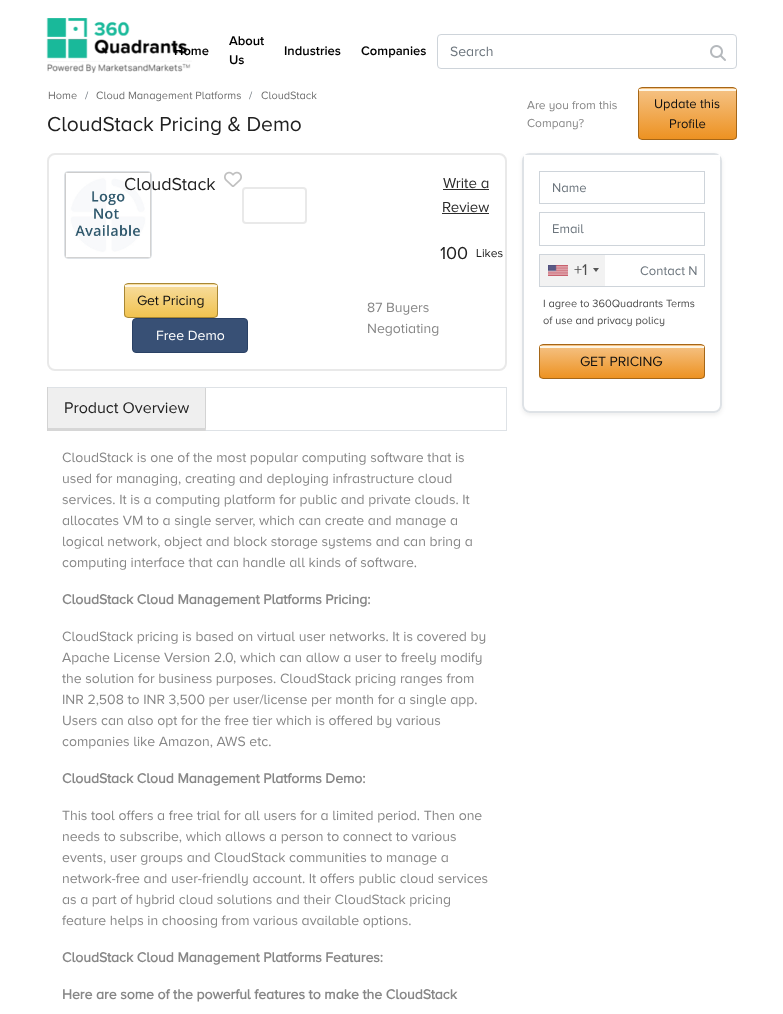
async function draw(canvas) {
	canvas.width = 783;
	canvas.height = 1014;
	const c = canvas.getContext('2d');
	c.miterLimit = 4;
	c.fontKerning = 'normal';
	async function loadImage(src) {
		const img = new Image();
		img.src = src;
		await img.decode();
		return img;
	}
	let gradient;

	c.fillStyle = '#fff';
	c.fillRect(0, 0, 783, 1014);
	c.drawImage(await loadImage('img1.png'), 46, 18, 146, 55);
	c.font = '600 13px Proxima Nova';
	c.fillStyle = '#000';
	for (const [text, x, y] of [
		['Home', 174, 55],
		['About', 229, 45],
		['Us', 229, 64],
		['Industries', 284, 55],
		['Companies', 361, 55],
	]) {
		c.fillText(text, x, y);
	}
	c.beginPath();
	c.roundRect(437.5, 34.5, 299, 34, 3.5);
	c.strokeStyle = '#ced4da';
	c.stroke();
	c.font = '14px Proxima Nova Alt';
	c.fillStyle = '#6c757d';
	c.fillText('Search', 450, 56);
	c.drawImage(await loadImage('img2.png'), 710, 45, 16, 16);
	c.beginPath();
	c.roundRect(48, 154, 458, 216, 7);
	c.strokeStyle = '#e9e9e9';
	c.lineWidth = 2;
	c.stroke();
	c.beginPath();
	c.roundRect(64.5, 171.5, 87, 87, 3.5);
	c.strokeStyle = '#dee2e6';
	c.lineWidth = 1;
	c.stroke();
	c.drawImage(await loadImage('img3.png'), 65, 172, 86, 86);
	c.font = '18px Proxima Nova Alt';
	c.fillStyle = '#212121';
	c.fillText('CloudStack', 124, 190);
	c.drawImage(await loadImage('img4.png'), 224, 171, 18, 16);
	c.beginPath();
	c.roundRect(243, 188, 63, 35, 3);
	c.strokeStyle = '#e9e9e9';
	c.lineWidth = 2;
	c.stroke();
	c.font = '15px Proxima Nova Alt';
	c.fillStyle = '#2c2c2c';
	c.fillText('Write a', 443, 188);
	c.fillRect(443, 189, 46, 1);
	c.fillText('Review', 442, 212);
	c.fillRect(442, 213, 47, 1);
	c.font = '18px Proxima Nova Alt';
	c.fillStyle = '#212121';
	c.fillText('100', 440, 259);
	c.font = '12px Proxima Nova Alt';
	c.fillText('Likes', 476, 257);
	c.save();
	c.beginPath();
	c.roundRect(124, 283, 94, 35, 4);
	c.clip();
	gradient = c.createLinearGradient(171, 284, 171, 317);
	gradient.addColorStop(0, '#f7dd9f');
	gradient.addColorStop(1, '#f1c350');
	c.fillStyle = gradient;
	c.fillRect(124, 284, 94, 33);
	c.restore();
	c.beginPath();
	c.roundRect(124.5, 283.5, 93, 34, 3.5);
	c.strokeStyle = '#a88734';
	c.lineWidth = 1;
	c.stroke();
	c.fillStyle = '#fdf6e6';
	c.fillRect(125, 285, 92, 2);
	c.font = '14px Proxima Nova Alt';
	c.fillStyle = '#101010';
	c.fillText('Get Pricing', 137, 305);
	c.fillStyle = '#385075';
	c.beginPath();
	c.roundRect(132.5, 318.5, 115, 34, 3.5);
	c.fill();
	c.strokeStyle = '#2a4165';
	c.stroke();
	c.fillStyle = '#fff';
	c.fillText('Free Demo', 156, 340);
	c.fillStyle = '#878787';
	c.fillText('87 Buyers', 367, 312);
	c.fillText('Negotiating', 367, 333);
	for (const [x, y, w, h, color] of [
		[47, 387, 460, 1, '#dee2e6'],
		[506, 387, 1, 44, '#dee2e6'],
		[206, 430, 301, 1, '#dee2e6'],
		[47, 387, 1, 44, '#d3d3d3'],
		[48, 388, 158, 43, '#efefef'],
	]) {
		c.fillStyle = color;
		c.fillRect(x, y, w, h);
	}
	c.fillStyle = '#d3d3d3';
	c.beginPath();
	c.moveTo(206, 388);
	c.lineTo(206, 431);
	c.lineTo(205, 428);
	c.lineTo(205, 388);
	c.closePath();
	c.fill();
	c.fillStyle = '#d6d6d6';
	c.beginPath();
	c.moveTo(206, 431);
	c.lineTo(48, 431);
	c.lineTo(48, 428);
	c.lineTo(205, 428);
	c.closePath();
	c.fill();
	c.font = '16px Proxima Nova Alt';
	c.fillStyle = '#212121';
	c.fillText('Product Overview', 64, 413);
	c.font = '14px Proxima Nova Alt';
	c.fillStyle = '#878787';
	for (const [text, x, y] of [
		['CloudStack is one of the most popular computing software that is', 62, 462],
		['used for managing, creating and deploying infrastructure cloud', 62, 483],
		['services. It is a computing platform for public and private clouds. It', 62, 504],
		['allocates VM to a single server, which can create and manage a', 62, 525],
		['logical network, object and block storage systems and can bring a', 62, 546],
		['computing interface that can handle all kinds of software.', 62, 567],
	]) {
		c.fillText(text, x, y);
	}
	c.font = 'bold 14px Proxima Nova Alt';
	c.fillText('CloudStack Cloud Management Platforms Pricing:', 62, 604);
	c.font = '14px Proxima Nova Alt';
	for (const [text, x, y] of [
		['CloudStack pricing is based on virtual user networks. It is covered by', 62, 641],
		['Apache License Version 2.0, which can allow a user to freely modify', 62, 662],
		['the solution for business purposes. CloudStack pricing ranges from', 62, 683],
		['INR 2,508 to INR 3,500 per user/license per month for a single app.', 62, 704],
		['Users can also opt for the free tier which is offered by various', 62, 725],
		['companies like Amazon, AWS etc.', 62, 746],
	]) {
		c.fillText(text, x, y);
	}
	c.font = 'bold 14px Proxima Nova Alt';
	c.fillText('CloudStack Cloud Management Platforms Demo:', 62, 783);
	c.font = '14px Proxima Nova Alt';
	for (const [text, x, y] of [
		['This tool offers a free trial for all users for a limited period. Then one', 62, 820],
		['needs to subscribe, which allows a person to connect to various', 62, 841],
		['events, user groups and CloudStack communities to manage a', 62, 862],
		['network-free and user-friendly account. It offers public cloud services', 62, 883],
		['as a part of hybrid cloud solutions and their CloudStack pricing', 62, 904],
		['feature helps in choosing from various available options.', 62, 925],
	]) {
		c.fillText(text, x, y);
	}
	c.font = 'bold 14px Proxima Nova Alt';
	c.fillText('CloudStack Cloud Management Platforms Features:', 62, 962);
	c.fillText('Here are some of the powerful features to make the CloudStack', 62, 999);
	c.save();
	c.beginPath();
	c.moveTo(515, 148);
	c.lineTo(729, 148);
	c.lineTo(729, 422);
	c.lineTo(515, 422);
	c.closePath();
	c.moveTo(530, 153);
	c.lineTo(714, 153);
	c.bezierCurveTo(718.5, 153, 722, 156.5, 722, 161);
	c.lineTo(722, 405);
	c.bezierCurveTo(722, 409.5, 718.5, 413, 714, 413);
	c.lineTo(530, 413);
	c.bezierCurveTo(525.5, 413, 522, 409.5, 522, 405);
	c.lineTo(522, 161);
	c.bezierCurveTo(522, 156.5, 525.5, 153, 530, 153);
	c.closePath();
	c.clip('evenodd');
	c.fillStyle = '#00000012';
	c.filter = 'blur(2px)';
	c.beginPath();
	c.roundRect(522, 155, 200, 260, 8);
	c.fill();
	c.filter = 'none';
	c.restore();
	c.beginPath();
	c.roundRect(523, 154, 198, 258, 7);
	c.strokeStyle = '#dee2e6';
	c.lineWidth = 2;
	c.stroke();
	c.fillStyle = '#fff';
	c.fillRect(524, 155, 196, 5);
	c.strokeStyle = '#ced4da';
	c.lineWidth = 1;
	c.strokeRect(539.5, 171.5, 165, 32);
	c.font = '13px Proxima Nova Alt';
	c.fillStyle = '#6c757d';
	c.fillText('Name', 552, 192);
	c.strokeRect(539.5, 212.5, 165, 33);
	c.fillText('Email', 552, 233);
	c.strokeRect(539.5, 254.5, 165, 32);
	c.fillStyle = '#f2f2f2';
	c.fillRect(540, 255, 65, 31);
	c.fillStyle = '#888';
	c.filter = 'blur(0.5px)';
	c.beginPath();
	c.rect(548, 265, 20, 11);
	c.fill();
	c.filter = 'none';
	c.drawImage(await loadImage('img5.png'), 548, 265, 20, 11);
	c.font = '16px Proxima Nova Alt';
	c.fillStyle = '#4d4d4d';
	c.fillText('+1', 574, 275);
	c.fillStyle = '#555';
	c.beginPath();
	c.moveTo(593, 268);
	c.lineTo(599, 268);
	c.lineTo(596, 272);
	c.closePath();
	c.fill();
	c.font = '13px Proxima Nova Alt';
	c.fillStyle = '#6c757d';
	c.fillText('Contact N', 640, 275);
	c.font = '11px Proxima Nova Alt';
	c.fillStyle = '#4d4d4d';
	c.fillText('I agree to 360Quadrants Terms', 543, 307);
	c.fillText('of use and privacy policy', 543, 324);
	c.save();
	c.beginPath();
	c.roundRect(539, 344, 166, 35, 4);
	c.clip();
	gradient = c.createLinearGradient(622, 345, 622, 378);
	gradient.addColorStop(0, '#f5c386');
	gradient.addColorStop(1, '#ed9222');
	c.fillStyle = gradient;
	c.fillRect(539, 345, 166, 33);
	c.restore();
	c.beginPath();
	c.roundRect(539.5, 344.5, 165, 34, 3.5);
	c.strokeStyle = '#a56617';
	c.stroke();
	c.fillStyle = '#fdf6e6';
	c.fillRect(540, 346, 164, 2);
	c.font = '14px Proxima Nova Alt';
	c.fillStyle = '#101010';
	c.fillText('GET PRICING', 580, 366);
	c.font = '11px Proxima Nova Alt';
	c.fillStyle = '#707070';
	c.fillText('Home', 48, 99);
	c.fillStyle = '#6c757d';
	c.fillText('/', 85, 99);
	c.fillStyle = '#707070';
	c.fillText('Cloud Management Platforms', 96, 99);
	c.fillStyle = '#6c757d';
	c.fillText('/', 249, 99);
	c.fillStyle = '#707070';
	c.fillText('CloudStack', 261, 99);
	c.font = '21px Proxima Nova Alt';
	c.fillStyle = '#212121';
	c.fillText('CloudStack Pricing & Demo', 47, 131);
	c.font = '12px Proxima Nova Alt';
	c.fillStyle = '#878787';
	c.fillText('Are you from this', 527, 109);
	c.fillText('Company?', 527, 127);
	c.save();
	c.beginPath();
	c.roundRect(638, 87, 99, 53, 4);
	c.clip();
	gradient = c.createLinearGradient(688, 88, 688, 139);
	gradient.addColorStop(0, '#f5c386');
	gradient.addColorStop(1, '#ed9222');
	c.fillStyle = gradient;
	c.fillRect(638, 88, 99, 51);
	c.restore();
	c.beginPath();
	c.roundRect(638.5, 87.5, 98, 52, 3.5);
	c.stroke();
	c.fillStyle = '#fdf6e6';
	c.fillRect(639, 89, 97, 2);
	c.font = '13px Proxima Nova Alt';
	c.fillStyle = '#101010';
	c.fillText('Update this', 654, 108);
	c.fillText('Profile', 669, 128);
}

draw(document.querySelector('canvas'));
